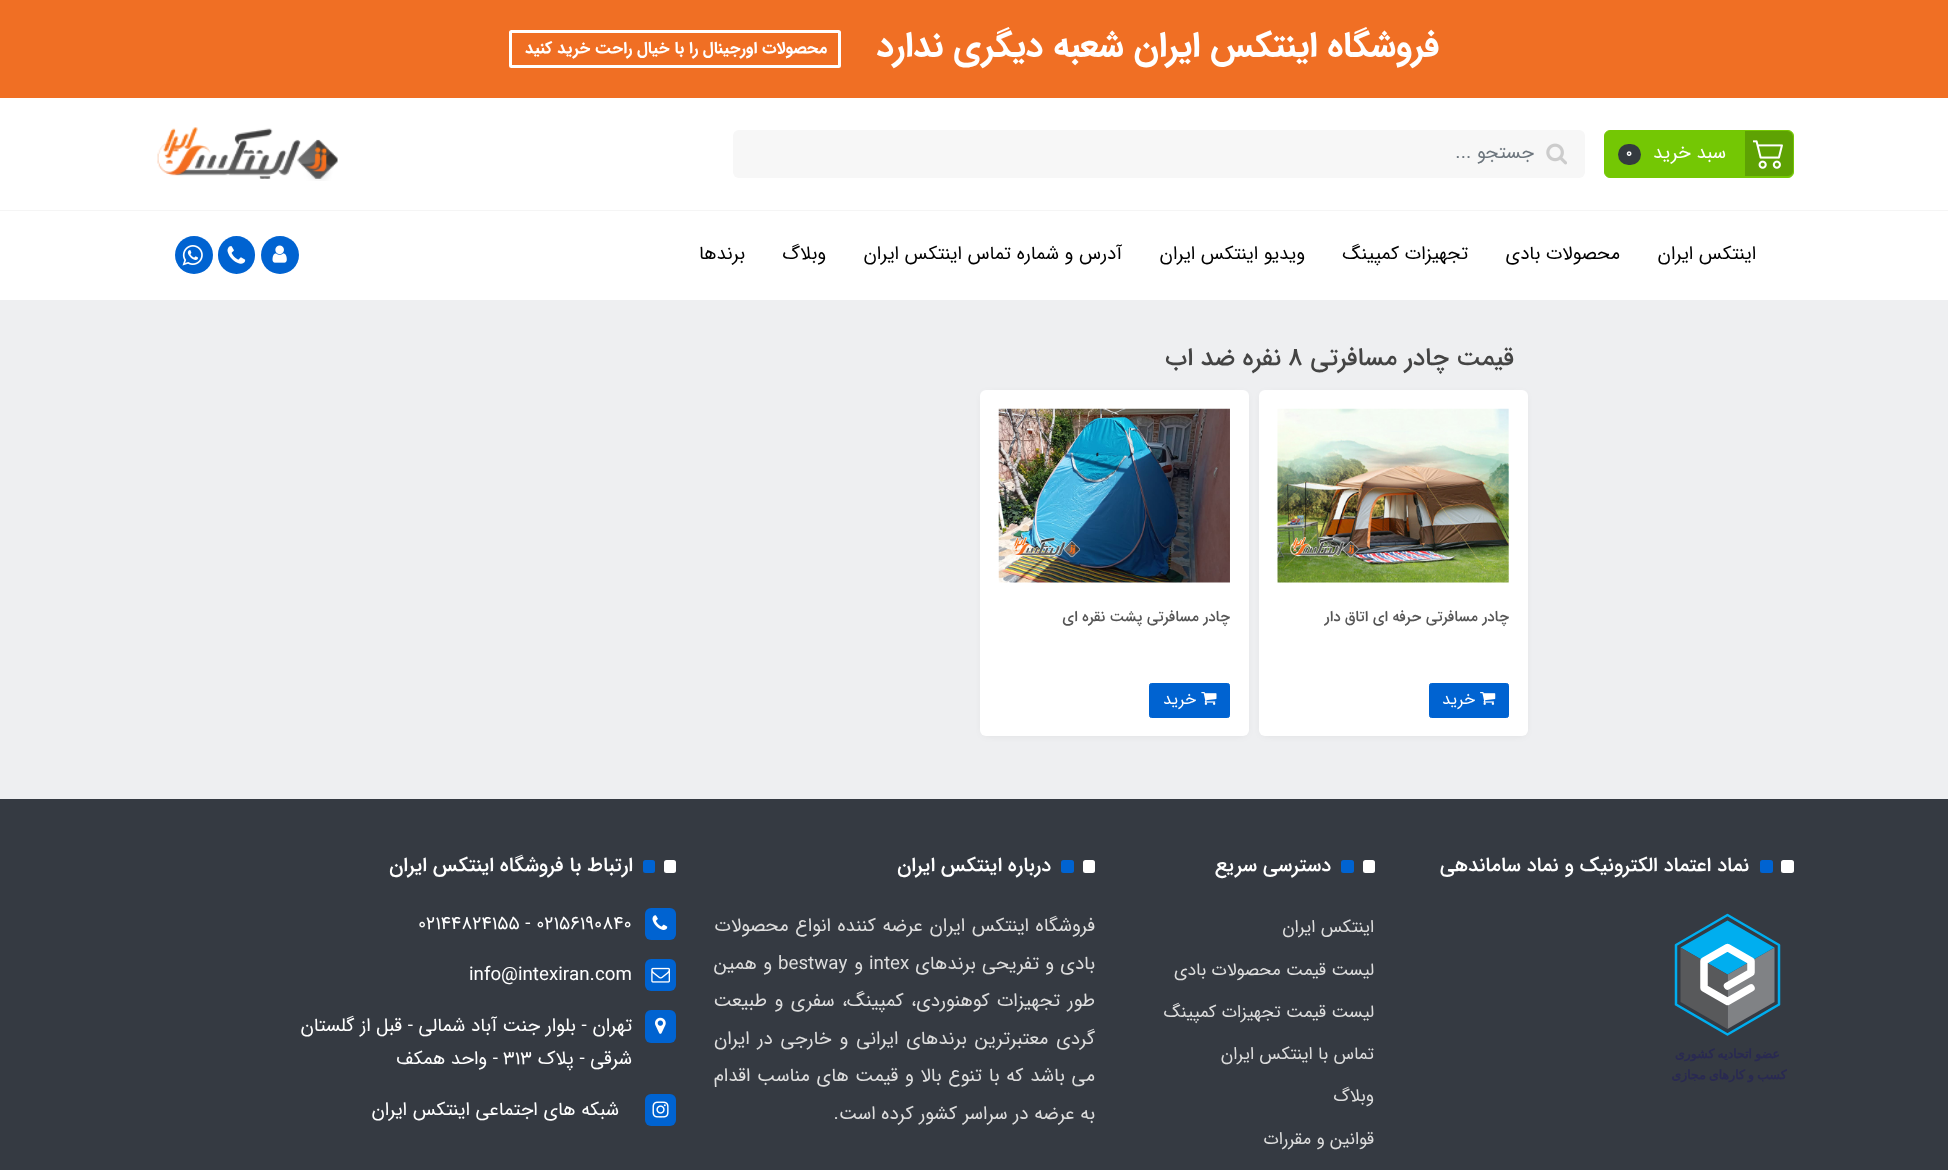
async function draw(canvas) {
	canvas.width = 1948;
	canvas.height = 1170;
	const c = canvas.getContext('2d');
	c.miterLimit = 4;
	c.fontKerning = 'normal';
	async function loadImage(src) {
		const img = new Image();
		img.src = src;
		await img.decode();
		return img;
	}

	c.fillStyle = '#eeeff1';
	c.fillRect(0, 0, 1948, 1170);
	c.fillStyle = '#fff';
	c.fillRect(0, 98, 1948, 202);
	c.fillStyle = '#f06f24';
	c.fillRect(0, 0, 1948, 98);
	c.direction = 'rtl';
	c.font = 'bold 35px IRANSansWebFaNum';
	c.fillStyle = '#fff';
	c.fillText('فروشگاه اینتکس ایران شعبه دیگری ندارد', 1439, 56);
	c.beginPath();
	c.roundRect(510.5, 31.5, 329, 35, 1);
	c.strokeStyle = '#fff';
	c.lineWidth = 3;
	c.stroke();
	c.font = 'bold 16.4px IRANSansWebFaNum';
	c.fillText('محصولات اورجینال را با خیال راحت خرید کنید', 827, 53);
	c.fillStyle = '#74c704';
	c.beginPath();
	c.roundRect(1604.5, 130.5, 189, 47, 5.5);
	c.fill();
	c.strokeStyle = '#74c704';
	c.lineWidth = 1;
	c.stroke();
	c.save();
	c.beginPath();
	c.roundRect(1605, 131, 188, 45, 5);
	c.clip();
	c.fillStyle = '#5ea203';
	c.beginPath();
	c.roundRect(1745, 131, 48, 47, [0, 6, 6, 0]);
	c.fill();
	c.restore();
	c.drawImage(await loadImage('img1.png'), 1753, 140, 30, 29);
	c.font = '18.75px IRANSansWebFaNum';
	c.fillStyle = '#fff';
	c.fillText('سبد خرید', 1726, 158);
	c.fillStyle = '#343a40';
	c.beginPath();
	c.roundRect(1618, 144, 23, 21, 10.5);
	c.fill();
	c.direction = 'ltr';
	c.font = 'bold 14px IRANSansWebFaNum';
	c.fillStyle = '#fff';
	c.fillText('0', 1626, 157);
	c.fillStyle = '#f7f7f7';
	c.beginPath();
	c.roundRect(733, 130, 852, 48, 6);
	c.fill();
	c.drawImage(await loadImage('img2.png'), 1546, 143, 21, 22);
	c.direction = 'rtl';
	c.font = '18.75px IRANSansWebFaNum';
	c.fillStyle = '#6c757d';
	c.fillText('جستجو ...', 1534, 158);
	c.drawImage(await loadImage('img3.png'), 157, 127, 181, 54);
	c.fillStyle = '#f5f5f5';
	c.fillRect(0, 210, 1948, 1);
	c.fillStyle = '#000';
	for (const [text, x, y] of [
		['اینتکس ایران', 1756, 259],
		['محصولات بادی', 1620, 259],
		['تجهیزات کمپینگ', 1468, 259],
		['ویدیو اینتکس ایران', 1305, 259],
		['آدرس و شماره تماس اینتکس ایران', 1122, 259],
		['وبلاگ', 826, 259],
		['برندها', 745, 259],
	]) {
		c.fillText(text, x, y);
	}
	c.fillStyle = '#0063d1';
	c.beginPath();
	c.arc(280, 255, 19, 0, 2 * Math.PI);
	c.fill();
	c.drawImage(await loadImage('img4.png'), 272, 245, 15, 18);
	c.beginPath();
	c.roundRect(218, 236, 37, 38, 18.5);
	c.fill();
	c.drawImage(await loadImage('img5.png'), 227, 246, 19, 18);
	c.beginPath();
	c.arc(194, 255, 19, 0, 2 * Math.PI);
	c.fill();
	c.drawImage(await loadImage('img6.png'), 182, 245, 21, 21);
	c.font = '500 25px IRANSansWebFaNum';
	c.fillStyle = '#444';
	c.fillText('قیمت چادر مسافرتی', 1514, 365);
	c.direction = 'ltr';
	c.fillText('8', 1288, 365);
	c.direction = 'rtl';
	c.fillText('نفره ضد اب', 1281, 365);
	c.fillStyle = '#0000001a';
	c.filter = 'blur(4.5px)';
	c.beginPath();
	c.roundRect(1263, 395, 261, 339, 2.5);
	c.fill();
	c.filter = 'none';
	c.fillStyle = '#fff';
	c.beginPath();
	c.roundRect(1259, 390, 269, 346, 6);
	c.fill();
	c.drawImage(await loadImage('img7.png'), 1277, 408, 232, 175);
	c.font = '500 15px IRANSansWebFaNum';
	c.fillStyle = '#555';
	c.fillText('چادر مسافرتی حرفه ای اتاق دار', 1509, 621);
	c.fillStyle = '#0063d1';
	c.beginPath();
	c.roundRect(1429.5, 683.5, 79, 34, 2);
	c.fill();
	c.strokeStyle = '#0063d1';
	c.stroke();
	c.drawImage(await loadImage('img8.png'), 1480, 692, 16, 13);
	c.font = '16.4px IRANSansWebFaNum';
	c.fillStyle = '#fff';
	c.fillText('خرید', 1475, 704);
	c.fillStyle = '#0000001a';
	c.filter = 'blur(4.5px)';
	c.beginPath();
	c.roundRect(984, 395, 261, 339, 2.5);
	c.fill();
	c.filter = 'none';
	c.fillStyle = '#fff';
	c.beginPath();
	c.roundRect(980, 390, 269, 346, 6);
	c.fill();
	c.drawImage(await loadImage('img9.png'), 998, 408, 232, 175);
	c.font = '500 15px IRANSansWebFaNum';
	c.fillStyle = '#555';
	c.fillText('چادر مسافرتی پشت نقره ای', 1230, 621);
	c.fillStyle = '#0063d1';
	c.beginPath();
	c.roundRect(1149.5, 683.5, 80, 34, 2);
	c.fill();
	c.stroke();
	c.drawImage(await loadImage('img10.png'), 1201, 692, 16, 13);
	c.font = '16.4px IRANSansWebFaNum';
	c.fillStyle = '#fff';
	c.fillText('خرید', 1196, 704);
	c.fillStyle = '#353a42';
	c.fillRect(0, 799, 1948, 371);
	c.fillStyle = '#fff';
	c.beginPath();
	c.roundRect(1781, 860, 13, 13, 2.5);
	c.fill();
	c.fillStyle = '#0063d1';
	c.beginPath();
	c.roundRect(1760, 860, 13, 13, 2.5);
	c.fill();
	c.font = '500 20px IRANSansWebFaNum';
	c.fillStyle = '#fff';
	c.fillText('نماد اعتماد الکترونیک و نماد ساماندهی', 1749, 871);
	c.drawImage(await loadImage('img11.png'), 1672, 913, 115, 170);
	c.beginPath();
	c.roundRect(1363, 860, 12, 13, 2.5);
	c.fill();
	c.fillStyle = '#0063d1';
	c.beginPath();
	c.roundRect(1341, 860, 13, 13, 2.5);
	c.fill();
	c.fillStyle = '#fff';
	c.fillText('دسترسی سریع', 1331, 871);
	c.font = '17.5px IRANSansWebFaNum';
	c.fillStyle = '#ddd';
	for (const [text, x, y] of [
		['اینتکس ایران', 1374, 932],
		['لیست قیمت محصولات بادی', 1374, 975],
		['لیست قیمت تجهیزات کمپینگ', 1374, 1017],
		['تماس با اینتکس ایران', 1374, 1059],
		['وبلاگ', 1374, 1101],
		['قوانین و مقررات', 1374, 1144],
	]) {
		c.fillText(text, x, y);
	}
	c.fillStyle = '#fff';
	c.beginPath();
	c.roundRect(1083, 860, 12, 13, 2.5);
	c.fill();
	c.fillStyle = '#0063d1';
	c.beginPath();
	c.roundRect(1061, 860, 13, 13, 2.5);
	c.fill();
	c.font = '500 20px IRANSansWebFaNum';
	c.fillStyle = '#fff';
	c.fillText('درباره اینتکس ایران', 1051, 871);
	c.wordSpacing = '1px';
	c.font = '18.75px IRANSansWebFaNum';
	c.fillStyle = '#ddd';
	c.fillText('فروشگاه اینتکس ایران عرضه کننده انواع محصولات', 1095, 931);
	c.wordSpacing = '0.5px';
	c.fillText('بادی و تفریحی برندهای', 1095, 969);
	c.wordSpacing = '0px';
	c.direction = 'ltr';
	c.fillText('intex', 869, 969);
	c.direction = 'rtl';
	c.fillText('و', 863, 969);
	c.direction = 'ltr';
	c.fillText('bestway', 778, 969);
	c.wordSpacing = '1px';
	c.direction = 'rtl';
	c.fillText('و همین', 772, 969);
	c.wordSpacing = '1.75px';
	c.fillText('طور تجهیزات کوهنوردی، کمپینگ، سفری و طبیعت', 1095, 1006);
	c.wordSpacing = '2.25px';
	c.fillText('گردی معتبرترین برندهای ایرانی و خارجی در ایران', 1095, 1044);
	c.wordSpacing = '1px';
	c.fillText('می باشد که با تنوع بالا و قیمت های مناسب اقدام', 1095, 1081);
	c.wordSpacing = '0px';
	c.fillText('به عرضه در سراسر کشور کرده است.', 1095, 1119);
	c.fillStyle = '#fff';
	c.beginPath();
	c.roundRect(664, 860, 12, 13, 2.5);
	c.fill();
	c.fillStyle = '#0063d1';
	c.beginPath();
	c.roundRect(643, 860, 12, 13, 2.5);
	c.fill();
	c.font = '500 20px IRANSansWebFaNum';
	c.fillStyle = '#fff';
	c.fillText('ارتباط با فروشگاه اینتکس ایران', 633, 871);
	c.fillStyle = '#0063d1';
	c.beginPath();
	c.roundRect(645, 908, 31, 32, 6);
	c.fill();
	c.drawImage(await loadImage('img12.png'), 652, 915, 16, 15);
	c.direction = 'ltr';
	c.font = '18.75px IRANSansWebFaNum';
	c.fillStyle = '#fff';
	c.fillText('02144824155 - 02156190840', 418, 929);
	c.fillStyle = '#0063d1';
	c.beginPath();
	c.roundRect(645, 959, 31, 32, 6);
	c.fill();
	c.drawImage(await loadImage('img13.png'), 651, 967, 19, 16);
	c.fillStyle = '#fff';
	c.fillText('info@intexiran.com', 469, 980);
	c.fillStyle = '#0063d1';
	c.beginPath();
	c.roundRect(645, 1010, 31, 33, 6);
	c.fill();
	c.drawImage(await loadImage('img14.png'), 655, 1017, 11, 17);
	c.direction = 'rtl';
	c.fillStyle = '#fff';
	c.fillText('تهران - بلوار جنت آباد شمالی - قبل از گلستان', 632, 1031);
	c.fillText('شرقی - پلاک', 632, 1064);
	c.direction = 'ltr';
	c.fillText('313', 503, 1064);
	c.direction = 'rtl';
	c.fillText('- واحد همکف', 498, 1064);
	c.fillStyle = '#0063d1';
	c.beginPath();
	c.roundRect(645, 1094, 31, 32, 6);
	c.fill();
	c.drawImage(await loadImage('img15.png'), 652, 1101, 17, 17);
	c.fillStyle = '#fff';
	c.fillText('شبکه های اجتماعی اینتکس ایران', 619, 1115);
}

draw(document.querySelector('canvas'));
